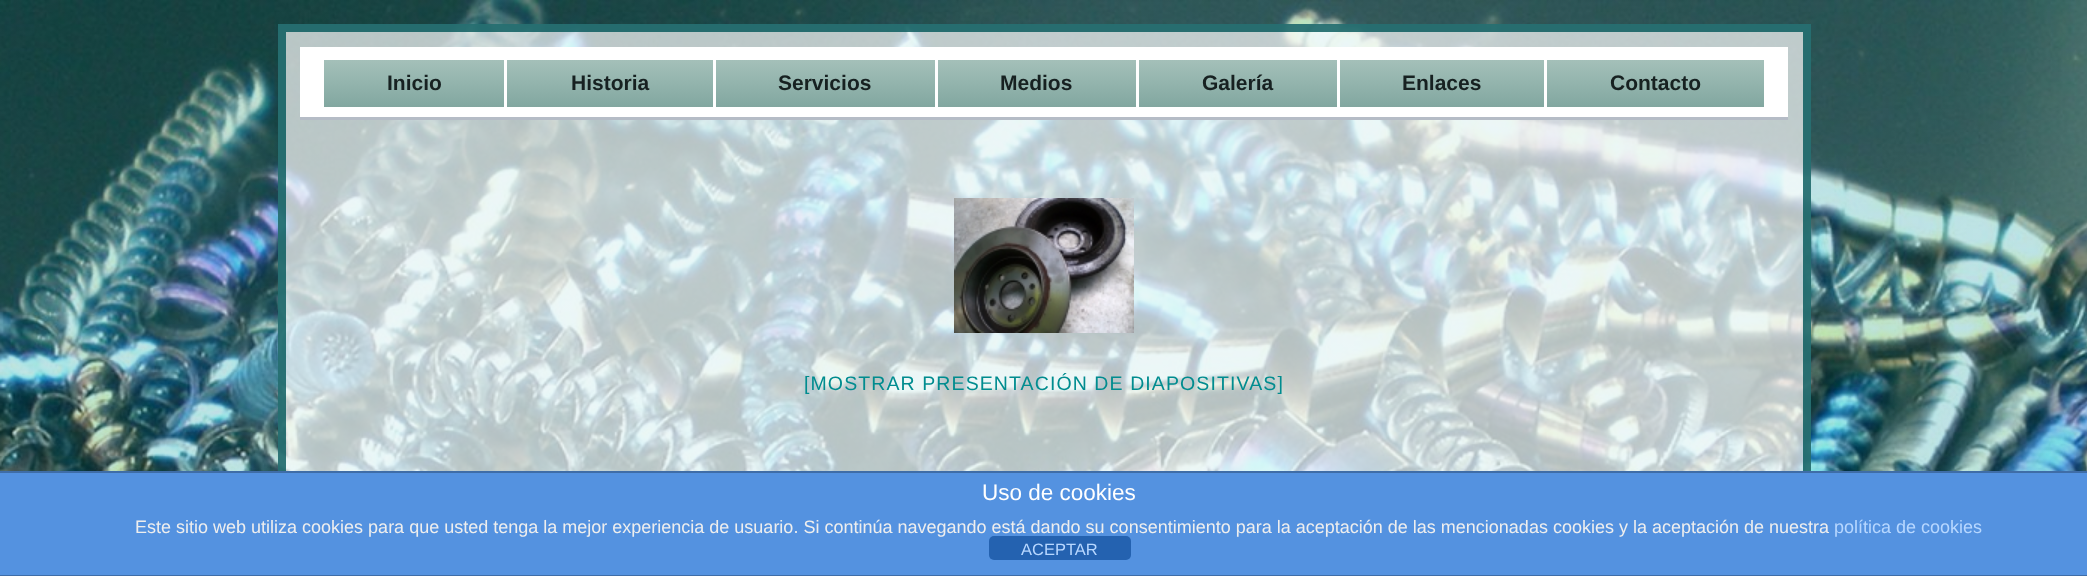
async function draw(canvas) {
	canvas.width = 2087;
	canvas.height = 576;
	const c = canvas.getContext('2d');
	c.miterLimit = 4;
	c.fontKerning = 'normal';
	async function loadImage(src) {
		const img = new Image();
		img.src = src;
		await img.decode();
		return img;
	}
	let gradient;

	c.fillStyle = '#fff';
	c.fillRect(0, 0, 2087, 576);
	c.drawImage(await loadImage('img1.png'), 0, 0, 2087, 471);
	c.fillStyle = '#ffffffb3';
	c.fillRect(278, 24, 1533, 447);
	c.strokeStyle = '#005557cc';
	c.lineWidth = 8;
	c.strokeRect(282, 28, 1525, 460);
	c.fillStyle = '#fff';
	c.fillRect(300, 47, 1488, 70);
	c.fillStyle = '#b5bcc6';
	c.fillRect(300, 117, 1488, 3);
	gradient = c.createLinearGradient(414, 60, 414, 107);
	gradient.addColorStop(0, '#a4c0b9');
	gradient.addColorStop(0.93, '#84a9a2');
	gradient.addColorStop(1, '#82a69f');
	c.fillStyle = gradient;
	c.fillRect(324, 60, 180, 47);
	c.font = 'bold 21px Liberation Sans';
	c.fillStyle = '#172121';
	c.fillText('Inicio', 387, 90);
	gradient = c.createLinearGradient(610, 60, 610, 107);
	gradient.addColorStop(0, '#a4c0b9');
	gradient.addColorStop(0.93, '#84a9a2');
	gradient.addColorStop(1, '#82a69f');
	c.fillStyle = gradient;
	c.fillRect(507, 60, 206, 47);
	c.fillStyle = '#172121';
	c.fillText('Historia', 571, 90);
	gradient = c.createLinearGradient(825, 60, 825, 107);
	gradient.addColorStop(0, '#a4c0b9');
	gradient.addColorStop(0.93, '#84a9a2');
	gradient.addColorStop(1, '#82a69f');
	c.fillStyle = gradient;
	c.fillRect(716, 60, 219, 47);
	c.fillStyle = '#172121';
	c.fillText('Servicios', 778, 90);
	gradient = c.createLinearGradient(1037, 60, 1037, 107);
	gradient.addColorStop(0, '#a4c0b9');
	gradient.addColorStop(0.93, '#84a9a2');
	gradient.addColorStop(1, '#82a69f');
	c.fillStyle = gradient;
	c.fillRect(938, 60, 198, 47);
	c.fillStyle = '#172121';
	c.fillText('Medios', 1000, 90);
	gradient = c.createLinearGradient(1238, 60, 1238, 107);
	gradient.addColorStop(0, '#a4c0b9');
	gradient.addColorStop(0.93, '#84a9a2');
	gradient.addColorStop(1, '#82a69f');
	c.fillStyle = gradient;
	c.fillRect(1139, 60, 198, 47);
	c.fillStyle = '#172121';
	c.fillText('Galería', 1202, 90);
	gradient = c.createLinearGradient(1442, 60, 1442, 107);
	gradient.addColorStop(0, '#a4c0b9');
	gradient.addColorStop(0.93, '#84a9a2');
	gradient.addColorStop(1, '#82a69f');
	c.fillStyle = gradient;
	c.fillRect(1340, 60, 204, 47);
	c.fillStyle = '#172121';
	c.fillText('Enlaces', 1402, 90);
	gradient = c.createLinearGradient(1655, 60, 1655, 107);
	gradient.addColorStop(0, '#a4c0b9');
	gradient.addColorStop(0.93, '#84a9a2');
	gradient.addColorStop(1, '#82a69f');
	c.fillStyle = gradient;
	c.fillRect(1547, 60, 217, 47);
	c.fillStyle = '#172121';
	c.fillText('Contacto', 1610, 90);
	c.drawImage(await loadImage('img2.png'), 954, 198, 180, 135);
	c.letterSpacing = '1.1px';
	c.font = '19.5px Liberation Sans';
	c.fillStyle = '#008c8f';
	c.fillText('[MOSTRAR PRESENTACIÓN DE DIAPOSITIVAS]', 804, 390);
	for (const [x, y, w, h, color] of [
		[0, 473, 2087, 102, '#5492e0'],
		[0, 471, 2087, 2, '#3f6da7'],
		[0, 575, 2087, 1, '#3f6da7'],
	]) {
		c.fillStyle = color;
		c.fillRect(x, y, w, h);
	}
	c.letterSpacing = '0px';
	c.font = '22.5px Liberation Sans';
	c.fillStyle = '#fff';
	c.fillText('Uso de cookies', 982, 500);
	c.fillStyle = '#2462b0';
	c.beginPath();
	c.roundRect(989, 536, 142, 24, 5);
	c.fill();
	c.font = '18px Liberation Sans';
	c.fillStyle = '#eee';
	c.fillText('Este sitio web utiliza cookies para que usted tenga la mejor experiencia de usuario. Si continúa navegando está dando su consentimiento para la aceptación de las mencionadas cookies y la aceptación de nuestra', 135, 533);
	c.fillStyle = '#b7d7ff';
	c.fillText('política de cookies', 1834, 533);
	c.font = '16.5px Liberation Sans';
	c.fillText('ACEPTAR', 1021, 555);
}

draw(document.querySelector('canvas'));
